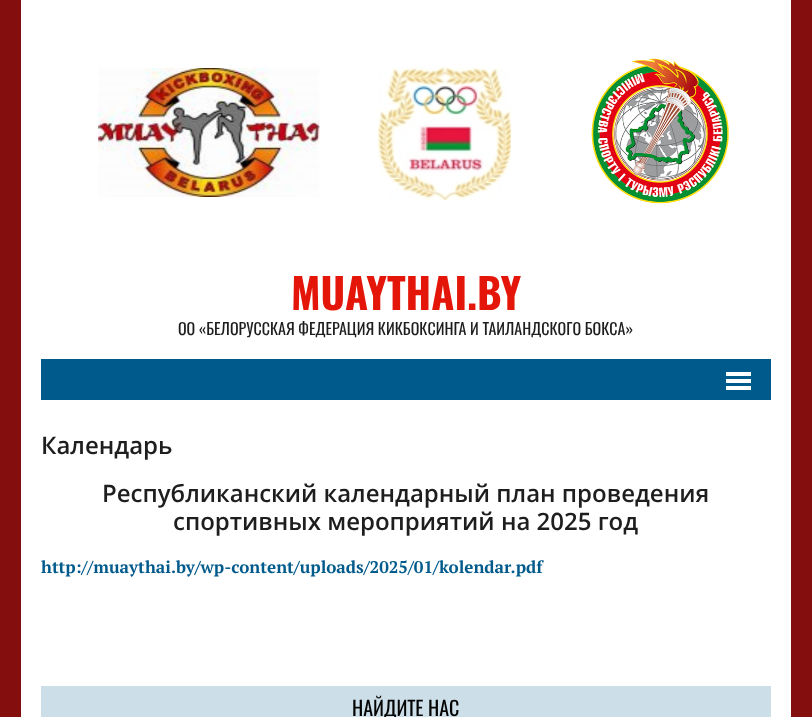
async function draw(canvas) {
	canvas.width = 812;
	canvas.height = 717;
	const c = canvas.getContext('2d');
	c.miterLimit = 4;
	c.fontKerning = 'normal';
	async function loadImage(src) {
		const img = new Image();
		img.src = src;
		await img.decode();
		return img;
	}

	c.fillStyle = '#840e0e';
	c.fillRect(0, 0, 812, 717);
	c.fillStyle = '#fff';
	c.fillRect(21, 0, 770, 717);
	c.drawImage(await loadImage('img1.png'), 98, 58, 631, 146);
	c.font = 'bold 42px Oswald';
	c.fillStyle = '#e41609';
	c.fillText('MUAYTHAI.BY', 291, 310);
	c.font = '16px Oswald';
	c.fillStyle = '#1f1e1e';
	c.fillText('ОО «БЕЛОРУССКАЯ ФЕДЕРАЦИЯ КИКБОКСИНГА И ТАИЛАНДСКОГО БОКСА»', 178, 335);
	for (const [x, y, w, h, color] of [
		[41, 359, 730, 41, '#005a8c'],
		[726, 372, 25, 4, '#fff'],
		[726, 379, 25, 4, '#fff'],
		[726, 386, 25, 4, '#fff'],
	]) {
		c.fillStyle = color;
		c.fillRect(x, y, w, h);
	}
	c.font = '600 24px Open Sans';
	c.fillStyle = '#1f1e1e';
	for (const [text, x, y] of [
		['Календарь', 41, 454],
		['Республиканский календарный план проведения', 102, 502],
		['спортивных мероприятий на 2025 год', 173, 530],
	]) {
		c.fillText(text, x, y);
	}
	c.font = 'bold 17px PT Serif';
	c.fillStyle = '#005a8c';
	c.fillText('http://muaythai.by/wp-content/uploads/2025/01/kolendar.pdf', 41, 573);
	c.fillStyle = '#ccdee8';
	c.fillRect(41, 686, 730, 31);
	c.font = '20px Oswald';
	c.fillStyle = '#040404';
	c.fillText('НАЙДИТЕ НАС', 352, 716);
}

draw(document.querySelector('canvas'));
